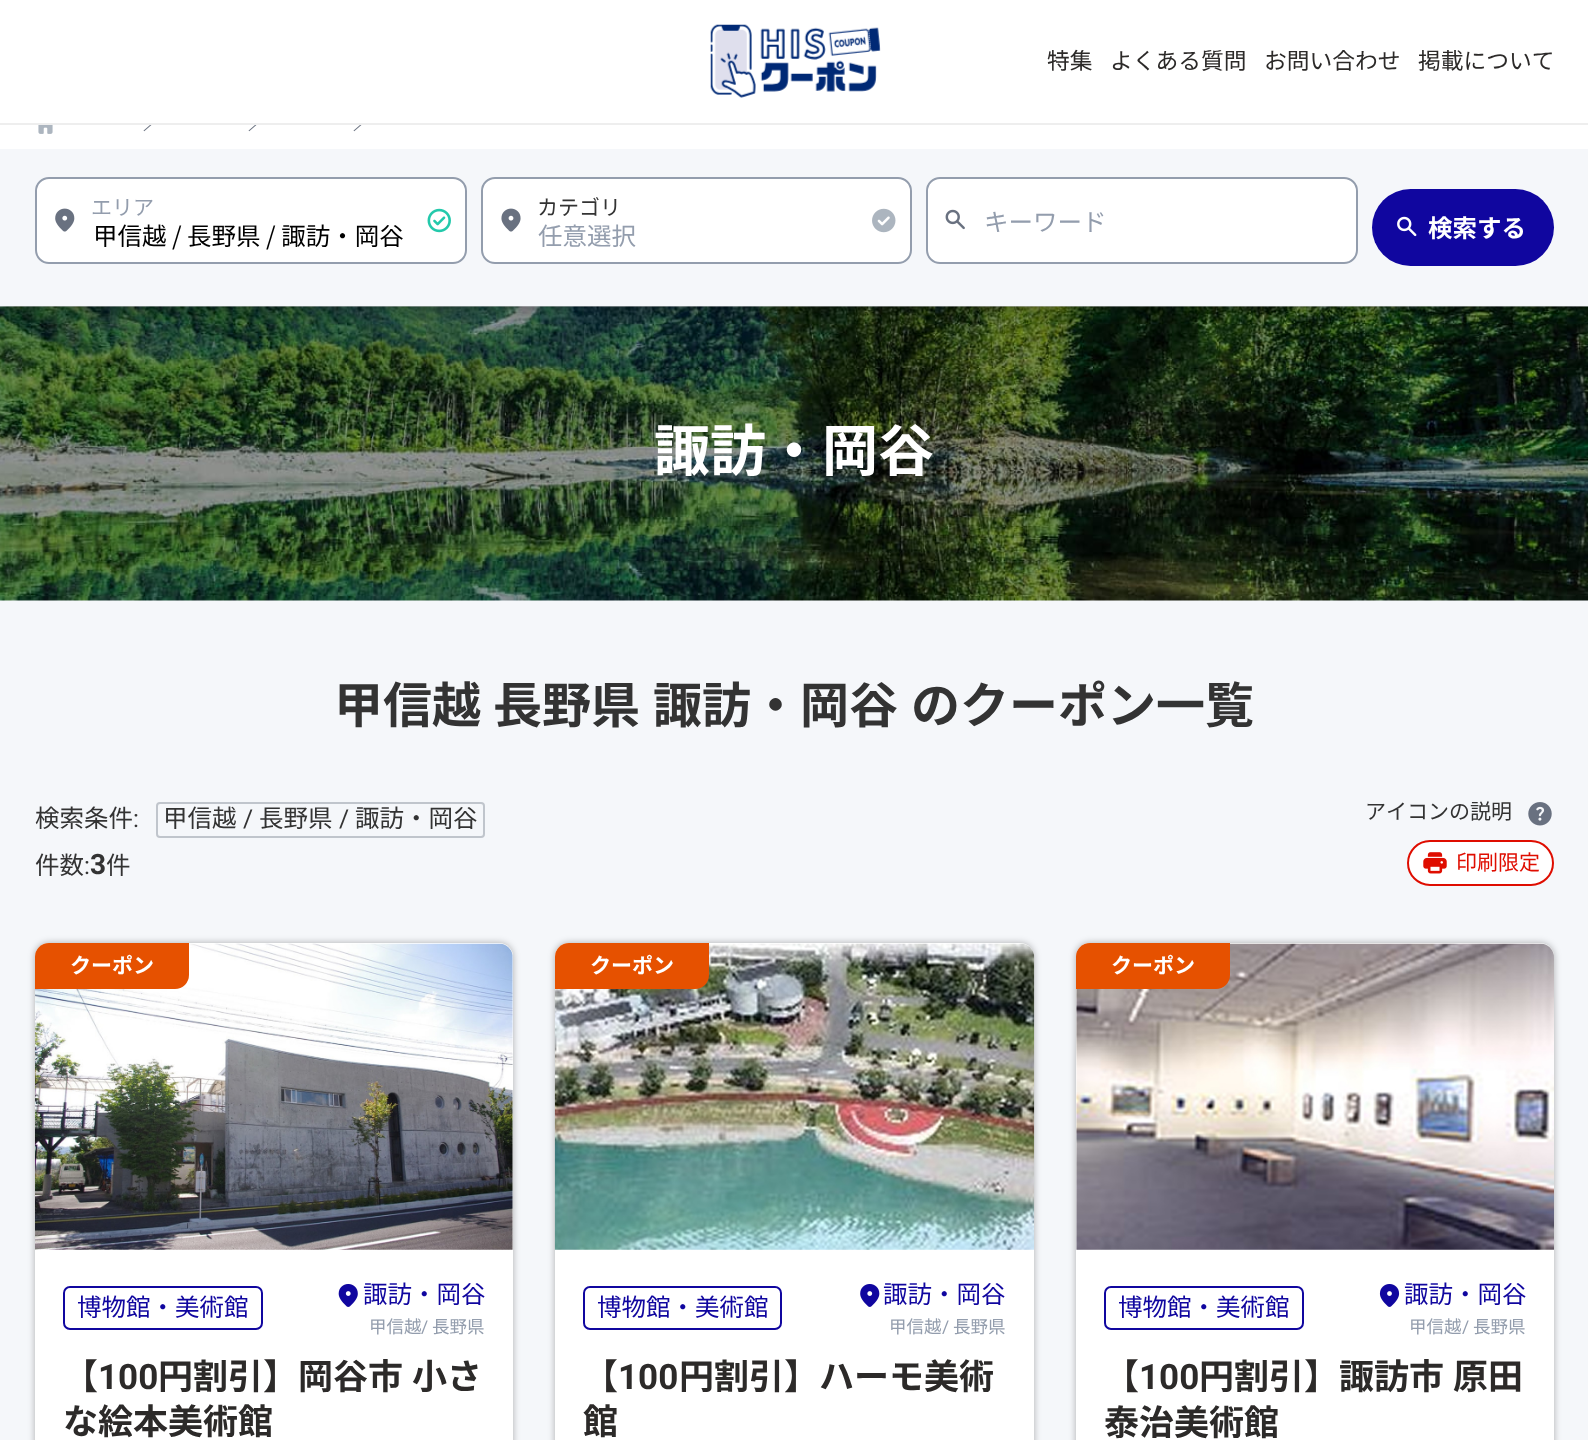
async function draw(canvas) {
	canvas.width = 1588;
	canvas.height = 1440;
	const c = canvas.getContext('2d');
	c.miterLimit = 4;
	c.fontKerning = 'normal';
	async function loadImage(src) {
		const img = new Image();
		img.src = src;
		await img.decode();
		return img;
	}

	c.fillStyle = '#f5f7fa';
	c.fillRect(0, 0, 1588, 1440);
	c.drawImage(await loadImage('img10.png'), 0, 306, 1588, 295);
	c.save();
	c.beginPath();
	c.rect(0, 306, 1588, 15);
	c.clip();
	c.fillStyle = '#00000073';
	c.filter = 'blur(9px)';
	c.beginPath();
	c.rect(0, 149, 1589, 157);
	c.fill();
	c.filter = 'none';
	c.restore();
	c.fillStyle = '#fff';
	c.fillRect(0, 0, 1588, 123);
	c.fillStyle = '#eee';
	c.fillRect(0, 123, 1588, 2);
	c.drawImage(await loadImage('img1.png'), 710, 24, 171, 74);
	c.font = '22.75px Noto Sans JP';
	c.fillStyle = '#2c2a29';
	for (const [text, x, y] of [
		['特集', 1047, 69],
		['よくある質問', 1110, 69],
		['お問い合わせ', 1264, 69],
		['掲載について', 1418, 69],
	]) {
		c.fillText(text, x, y);
	}
	c.fillStyle = '#fff';
	c.fillRect(0, 125, 1588, 24);
	c.drawImage(await loadImage('img2.png'), 38, 125, 15, 9);
	c.drawImage(await loadImage('img3.png'), 143, 125, 9, 7);
	c.drawImage(await loadImage('img3.png'), 248, 125, 9, 7);
	c.drawImage(await loadImage('img3.png'), 353, 125, 9, 7);
	c.beginPath();
	c.roundRect(35, 177, 432, 87, 14);
	c.fill();
	c.drawImage(await loadImage('img5.png'), 55, 208, 20, 24);
	c.beginPath();
	c.roundRect(36, 178, 430, 85, 13);
	c.strokeStyle = '#939dad';
	c.lineWidth = 2;
	c.stroke();
	c.font = '21px Noto Sans JP';
	c.fillStyle = '#939dad';
	c.fillText('エリア', 91, 215);
	c.drawImage(await loadImage('img4.png'), 427, 208, 24, 25);
	c.font = '24.5px Noto Sans JP';
	c.fillStyle = '#000';
	c.fillText('甲信越 / 長野県 / 諏訪・岡谷', 93, 245);
	c.fillStyle = '#fff';
	c.beginPath();
	c.roundRect(481, 177, 431, 87, 14);
	c.fill();
	c.drawImage(await loadImage('img7.png'), 501, 208, 20, 24);
	c.beginPath();
	c.roundRect(482, 178, 429, 85, 13);
	c.stroke();
	c.font = '21px Noto Sans JP';
	c.fillStyle = '#333';
	c.fillText('カテゴリ', 537, 215);
	c.drawImage(await loadImage('img6.png'), 872, 208, 24, 25);
	c.font = '24.5px Noto Sans JP';
	c.fillStyle = '#939dad';
	c.fillText('任意選択', 538, 245);
	c.fillStyle = '#fff';
	c.beginPath();
	c.roundRect(926, 177, 432, 87, 14);
	c.fill();
	c.drawImage(await loadImage('img8.png'), 945, 209, 20, 21);
	c.beginPath();
	c.roundRect(927, 178, 430, 85, 13);
	c.stroke();
	c.fillStyle = '#939dad';
	c.fillText('キーワード', 984, 231);
	c.fillStyle = '#10069f';
	c.beginPath();
	c.roundRect(1372, 189, 182, 77, 38.5);
	c.fill();
	c.drawImage(await loadImage('img9.png'), 1397, 216, 20, 21);
	c.font = 'bold 24.5px Noto Sans JP';
	c.fillStyle = '#fff';
	c.fillText('検索する', 1428, 237);
	c.font = 'bold 56px Noto Sans JP';
	c.fillText('諏訪・岡谷', 654, 471);
	c.font = 'bold 49px Noto Sans JP';
	c.fillStyle = '#333';
	for (const [text, x, y] of [
		['甲信越', 334, 723],
		['長野県', 493, 723],
		['諏訪・岡谷', 653, 723],
		['のクーポン一覧', 911, 723],
	]) {
		c.fillText(text, x, y);
	}
	c.font = '24.5px Noto Sans JP';
	c.fillText('検索条件', 35, 827);
	c.font = '24.5px Roboto';
	c.fillText(':', 133, 827);
	c.beginPath();
	c.roundRect(157, 803, 327, 34, 3);
	c.strokeStyle = '#c0c5cc';
	c.stroke();
	c.font = '24.5px Noto Sans JP';
	c.fillText('甲信越', 163, 827);
	c.font = '24.5px Roboto';
	c.fillText('/', 243, 827);
	c.font = '24.5px Noto Sans JP';
	c.fillText('長野県', 259, 827);
	c.font = '24.5px Roboto';
	c.fillText('/', 339, 827);
	c.font = '24.5px Noto Sans JP';
	c.fillText('諏訪・岡谷', 355, 827);
	c.fillText('件数', 35, 874);
	c.font = '24.5px Roboto';
	c.fillText(':', 84, 874);
	c.font = 'bold 28px Roboto';
	c.fillText('3', 90, 874);
	c.font = '24.5px Noto Sans JP';
	c.fillText('件', 106, 874);
	c.font = '21px Noto Sans JP';
	c.fillText('アイコンの説明', 1365, 819);
	c.drawImage(await loadImage('img11.png'), 1528, 802, 24, 24);
	c.fillStyle = '#fff';
	c.beginPath();
	c.roundRect(1408, 841, 145, 44, 22);
	c.fill();
	c.strokeStyle = '#df0d00';
	c.stroke();
	c.drawImage(await loadImage('img12.png'), 1423, 852, 24, 22);
	c.fillStyle = '#df0d00';
	c.fillText('印刷限定', 1456, 870);
	c.fillStyle = '#0000004d';
	c.filter = 'blur(3.5px)';
	c.beginPath();
	c.roundRect(35, 943, 478, 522, 14);
	c.fill();
	c.filter = 'none';
	c.fillStyle = '#fff';
	c.beginPath();
	c.roundRect(35, 943, 478, 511, 14);
	c.fill();
	c.drawImage(await loadImage('img13.png'), 35, 943, 478, 307);
	c.fillStyle = '#e65100';
	c.beginPath();
	c.roundRect(35, 943, 154, 46, [14, 0, 14, 0]);
	c.fill();
	c.font = 'bold 21px Noto Sans JP';
	c.fillStyle = '#fff';
	c.fillText('クーポン', 70, 973);
	c.beginPath();
	c.roundRect(64, 1287, 198, 42, 6);
	c.strokeStyle = '#10069f';
	c.stroke();
	c.font = '24.5px Noto Sans JP';
	c.fillStyle = '#10069f';
	c.fillText('博物館・美術館', 77, 1316);
	c.drawImage(await loadImage('img14.png'), 338, 1284, 20, 23);
	c.fillText('諏訪・岡谷', 363, 1303);
	c.font = '17.5px Noto Sans JP';
	c.fillStyle = '#939dad';
	c.fillText('甲信越', 369, 1333);
	c.font = '17.5px Roboto';
	c.fillText('/', 421, 1333);
	c.font = '17.5px Noto Sans JP';
	c.fillText('長野県', 432, 1333);
	c.font = 'bold 35px Noto Sans JP';
	c.fillStyle = '#2c2a29';
	c.fillText('【', 63, 1389);
	c.font = 'bold 35px Roboto';
	c.fillText('100', 98, 1389);
	c.wordSpacing = '1px';
	c.font = 'bold 35px Noto Sans JP';
	c.fillText('円割引】岡谷市 小さ', 158, 1389);
	c.wordSpacing = '0px';
	c.fillText('な絵本美術館', 63, 1434);
	c.fillStyle = '#0000004d';
	c.filter = 'blur(3.5px)';
	c.beginPath();
	c.roundRect(555, 943, 479, 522, 14);
	c.fill();
	c.filter = 'none';
	c.fillStyle = '#fff';
	c.beginPath();
	c.roundRect(555, 943, 479, 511, 14);
	c.fill();
	c.drawImage(await loadImage('img15.png'), 554, 943, 481, 307);
	c.fillStyle = '#e65100';
	c.beginPath();
	c.roundRect(555, 943, 154, 46, [14, 0, 14, 0]);
	c.fill();
	c.font = 'bold 21px Noto Sans JP';
	c.fillStyle = '#fff';
	c.fillText('クーポン', 590, 973);
	c.beginPath();
	c.roundRect(584, 1287, 197, 42, 6);
	c.stroke();
	c.font = '24.5px Noto Sans JP';
	c.fillStyle = '#10069f';
	c.fillText('博物館・美術館', 597, 1316);
	c.drawImage(await loadImage('img16.png'), 860, 1284, 20, 23);
	c.fillText('諏訪・岡谷', 883, 1303);
	c.font = '17.5px Noto Sans JP';
	c.fillStyle = '#939dad';
	c.fillText('甲信越', 889, 1333);
	c.font = '17.5px Roboto';
	c.fillText('/', 942, 1333);
	c.font = '17.5px Noto Sans JP';
	c.fillText('長野県', 953, 1333);
	c.font = 'bold 35px Noto Sans JP';
	c.fillStyle = '#2c2a29';
	c.fillText('【', 583, 1389);
	c.font = 'bold 35px Roboto';
	c.fillText('100', 618, 1389);
	c.font = 'bold 35px Noto Sans JP';
	c.fillText('円割引】ハーモ美術', 679, 1389);
	c.fillText('館', 583, 1434);
	c.fillStyle = '#0000004d';
	c.filter = 'blur(3.5px)';
	c.beginPath();
	c.roundRect(1076, 943, 478, 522, 14);
	c.fill();
	c.filter = 'none';
	c.fillStyle = '#fff';
	c.beginPath();
	c.roundRect(1076, 943, 478, 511, 14);
	c.fill();
	c.drawImage(await loadImage('img17.png'), 1076, 943, 478, 307);
	c.fillStyle = '#e65100';
	c.beginPath();
	c.roundRect(1076, 943, 154, 46, [14, 0, 14, 0]);
	c.fill();
	c.font = 'bold 21px Noto Sans JP';
	c.fillStyle = '#fff';
	c.fillText('クーポン', 1111, 973);
	c.beginPath();
	c.roundRect(1105, 1287, 198, 42, 6);
	c.stroke();
	c.font = '24.5px Noto Sans JP';
	c.fillStyle = '#10069f';
	c.fillText('博物館・美術館', 1118, 1316);
	c.drawImage(await loadImage('img18.png'), 1379, 1284, 21, 23);
	c.fillText('諏訪・岡谷', 1404, 1303);
	c.font = '17.5px Noto Sans JP';
	c.fillStyle = '#939dad';
	c.fillText('甲信越', 1409, 1333);
	c.font = '17.5px Roboto';
	c.fillText('/', 1462, 1333);
	c.font = '17.5px Noto Sans JP';
	c.fillText('長野県', 1473, 1333);
	c.font = 'bold 35px Noto Sans JP';
	c.fillStyle = '#2c2a29';
	c.fillText('【', 1104, 1389);
	c.font = 'bold 35px Roboto';
	c.fillText('100', 1139, 1389);
	c.wordSpacing = '1px';
	c.font = 'bold 35px Noto Sans JP';
	c.fillText('円割引】諏訪市 原田', 1199, 1389);
	c.wordSpacing = '0px';
	c.fillText('泰治美術館', 1104, 1435);
}

draw(document.querySelector('canvas'));
